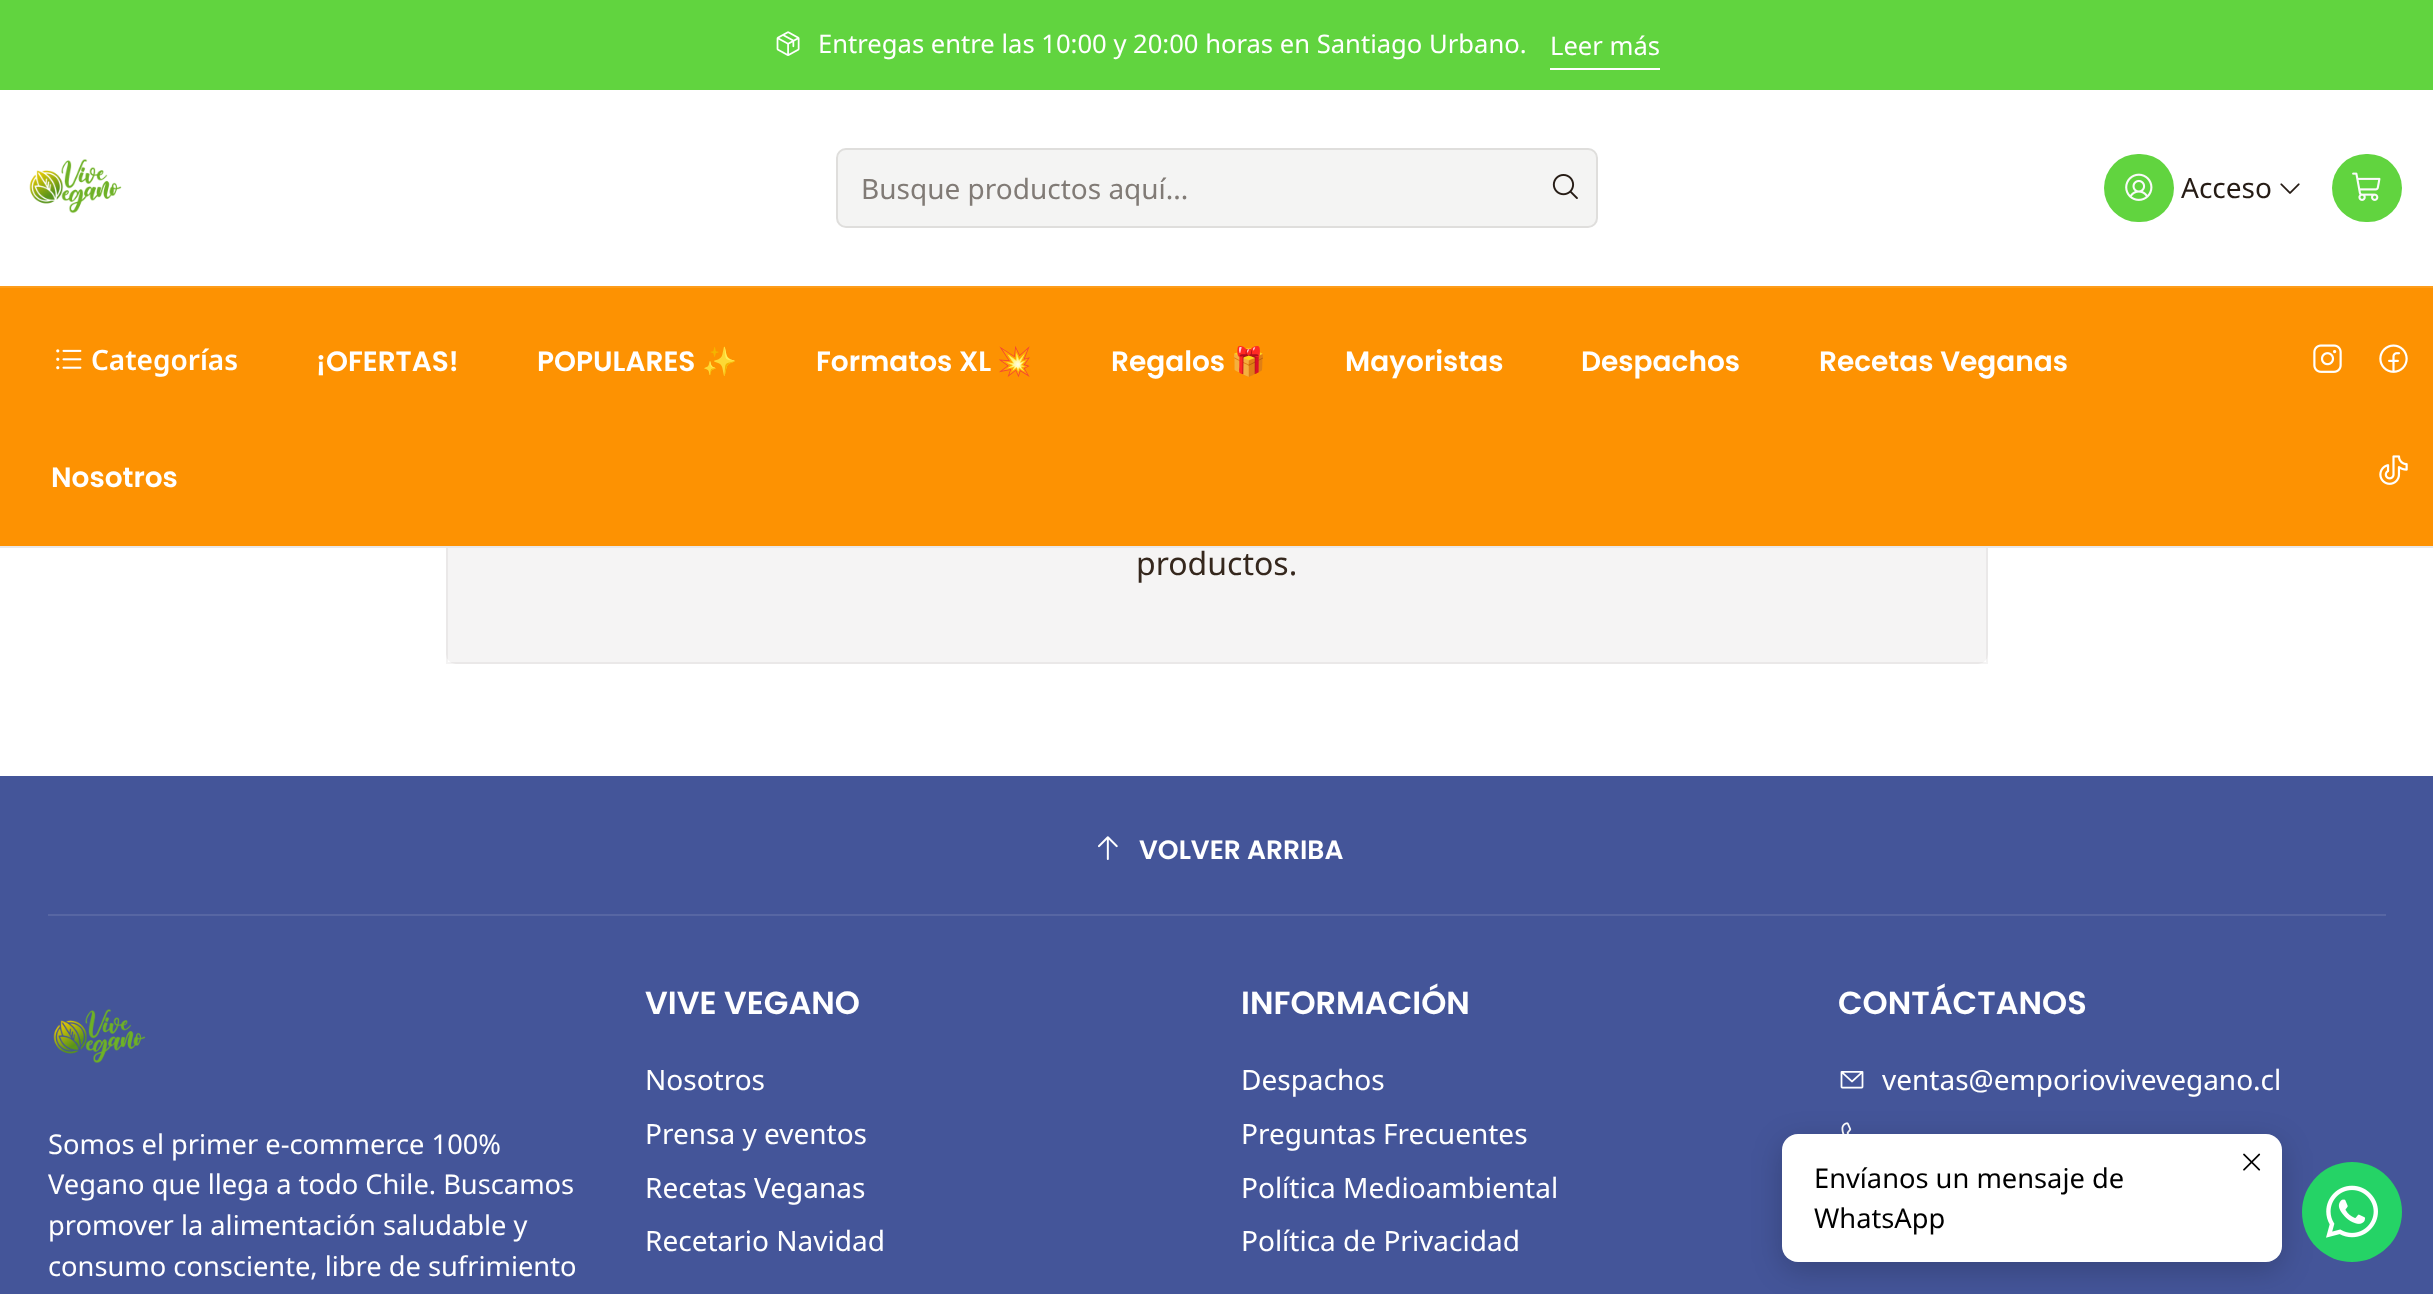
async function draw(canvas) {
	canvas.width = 2433;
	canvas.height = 1294;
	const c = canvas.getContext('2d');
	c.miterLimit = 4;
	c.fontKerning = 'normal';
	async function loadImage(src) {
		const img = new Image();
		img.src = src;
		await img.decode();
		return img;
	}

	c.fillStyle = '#fff';
	c.fillRect(0, 0, 2433, 1294);
	c.fillStyle = '#61d43f';
	c.fillRect(0, 0, 2433, 90);
	c.drawImage(await loadImage('img1.png'), 776, 31, 24, 25);
	c.font = '25.6px Noto Sans';
	c.fillStyle = '#fff';
	c.fillText('Entregas entre las 10:00 y 20:00 horas en Santiago Urbano.', 818, 53);
	c.fillRect(1550, 68, 110, 2);
	c.fillText('Leer más', 1550, 55);
	c.fillStyle = '#f5f4f4';
	c.beginPath();
	c.roundRect(446, 348, 1542, 316, 10);
	c.fill();
	c.strokeStyle = '#261c150d';
	c.lineWidth = 2;
	c.strokeRect(447, 349, 1540, 314);
	c.fillStyle = '#e9e8e8';
	c.fillRect(0, 546, 2433, 2);
	c.drawImage(await loadImage('img2.png'), 29, 159, 93, 55);
	c.fillStyle = '#f4f4f3';
	c.beginPath();
	c.roundRect(836, 148, 762, 80, 10);
	c.fill();
	c.beginPath();
	c.roundRect(837, 149, 760, 78, 9);
	c.strokeStyle = '#261c151a';
	c.stroke();
	c.font = '28px Noto Sans';
	c.fillStyle = '#817b76';
	c.fillText('Busque productos aquí...', 861, 199);
	c.drawImage(await loadImage('img3.png'), 1552, 174, 26, 25);
	c.fillStyle = '#61d43f';
	c.beginPath();
	c.roundRect(2104, 154, 70, 68, 34);
	c.fill();
	c.drawImage(await loadImage('img4.png'), 2125, 173, 28, 28);
	c.fillStyle = '#261c15';
	c.fillText('Acceso', 2181, 198);
	c.drawImage(await loadImage('img5.png'), 2280, 183, 20, 11);
	c.fillStyle = '#61d43f';
	c.beginPath();
	c.roundRect(2332, 154, 70, 68, 34);
	c.fill();
	c.drawImage(await loadImage('img6.png'), 2352, 172, 29, 29);
	c.fillStyle = '#fd9202';
	c.fillRect(0, 288, 2433, 258);
	c.fillStyle = '#fd9d1b';
	c.fillRect(0, 286, 2433, 2);
	c.drawImage(await loadImage('img7.png'), 56, 349, 26, 21);
	c.font = '600 28px Noto Sans';
	c.fillStyle = '#fff';
	c.fillText('Categorías', 91, 370);
	c.font = '600 28px Poppins';
	c.fillText('¡OFERTAS!', 316, 371);
	c.fillText('POPULARES', 537, 371);
	c.font = 'bold 28px Noto Color Emoji';
	c.fillText('✨', 702, 371);
	c.font = '600 28px Poppins';
	c.fillText('Formatos XL', 816, 371);
	c.font = 'bold 28px Noto Color Emoji';
	c.fillText('💥', 997, 371);
	c.font = '600 28px Poppins';
	c.fillText('Regalos', 1111, 371);
	c.font = 'bold 28px Noto Color Emoji';
	c.fillText('🎁', 1231, 371);
	c.font = '600 28px Poppins';
	for (const [text, x, y] of [
		['Mayoristas', 1345, 371],
		['Despachos', 1581, 371],
		['Recetas Veganas', 1819, 371],
		['Nosotros', 51, 487],
	]) {
		c.fillText(text, x, y);
	}
	c.drawImage(await loadImage('img8.png'), 2313, 344, 29, 29);
	c.drawImage(await loadImage('img9.png'), 2379, 344, 29, 29);
	c.drawImage(await loadImage('img10.png'), 2379, 455, 29, 30);
	c.font = '32px Noto Sans';
	c.fillStyle = '#35271d';
	c.fillText('productos.', 1136, 575);
	c.fillStyle = '#459';
	c.fillRect(0, 776, 2433, 518);
	c.drawImage(await loadImage('img11.png'), 1098, 836, 20, 24);
	c.font = '600 26.5px Poppins';
	c.fillStyle = '#fff';
	c.fillText('VOLVER ARRIBA', 1139, 859);
	c.fillStyle = '#5766a3';
	c.fillRect(48, 914, 2338, 2);
	c.drawImage(await loadImage('img12.png'), 53, 1009, 93, 54);
	c.font = '27.25px Noto Sans';
	c.fillStyle = '#fff';
	for (const [text, x, y] of [
		['Somos el primer e-commerce 100%', 48, 1154],
		['Vegano que llega a todo Chile. Buscamos', 48, 1194],
		['promover la alimentación saludable y', 48, 1235],
		['consumo consciente, libre de sufrimiento', 48, 1276],
	]) {
		c.fillText(text, x, y);
	}
	c.font = '600 32px Poppins';
	c.fillText('VIVE VEGANO', 645, 1014);
	c.font = '28px Noto Sans';
	for (const [text, x, y] of [
		['Nosotros', 645, 1090],
		['Prensa y eventos', 645, 1144],
		['Recetas Veganas', 645, 1198],
		['Recetario Navidad', 645, 1251],
	]) {
		c.fillText(text, x, y);
	}
	c.font = '600 32px Poppins';
	c.fillText('INFORMACIÓN', 1241, 1014);
	c.font = '28px Noto Sans';
	for (const [text, x, y] of [
		['Despachos', 1241, 1090],
		['Preguntas Frecuentes', 1241, 1144],
		['Política Medioambiental', 1241, 1198],
		['Política de Privacidad', 1241, 1251],
	]) {
		c.fillText(text, x, y);
	}
	c.font = '600 32px Poppins';
	c.fillText('CONTÁCTANOS', 1838, 1014);
	c.drawImage(await loadImage('img13.png'), 1840, 1071, 24, 18);
	c.font = '28px Noto Sans';
	c.fillText('ventas@emporiovivevegano.cl', 1882, 1090);
	c.drawImage(await loadImage('img14.png'), 1841, 1122, 11, 12);
	c.fillStyle = '#00000033';
	c.filter = 'blur(15px)';
	c.beginPath();
	c.roundRect(1782, 1142, 500, 128, 16);
	c.fill();
	c.filter = 'none';
	c.fillStyle = '#fff';
	c.beginPath();
	c.roundRect(1782, 1134, 500, 128, 16);
	c.fill();
	c.drawImage(await loadImage('img15.png'), 2243, 1153, 18, 18);
	c.font = '27.25px Noto Sans';
	c.fillStyle = '#000';
	c.fillText('Envíanos un mensaje de', 1814, 1188);
	c.fillText('WhatsApp', 1814, 1228);
	c.fillStyle = '#25d366';
	c.beginPath();
	c.arc(2352, 1212, 50, 0, 2 * Math.PI);
	c.fill();
	c.drawImage(await loadImage('img16.png'), 2326, 1185, 52, 53);
}

draw(document.querySelector('canvas'));
